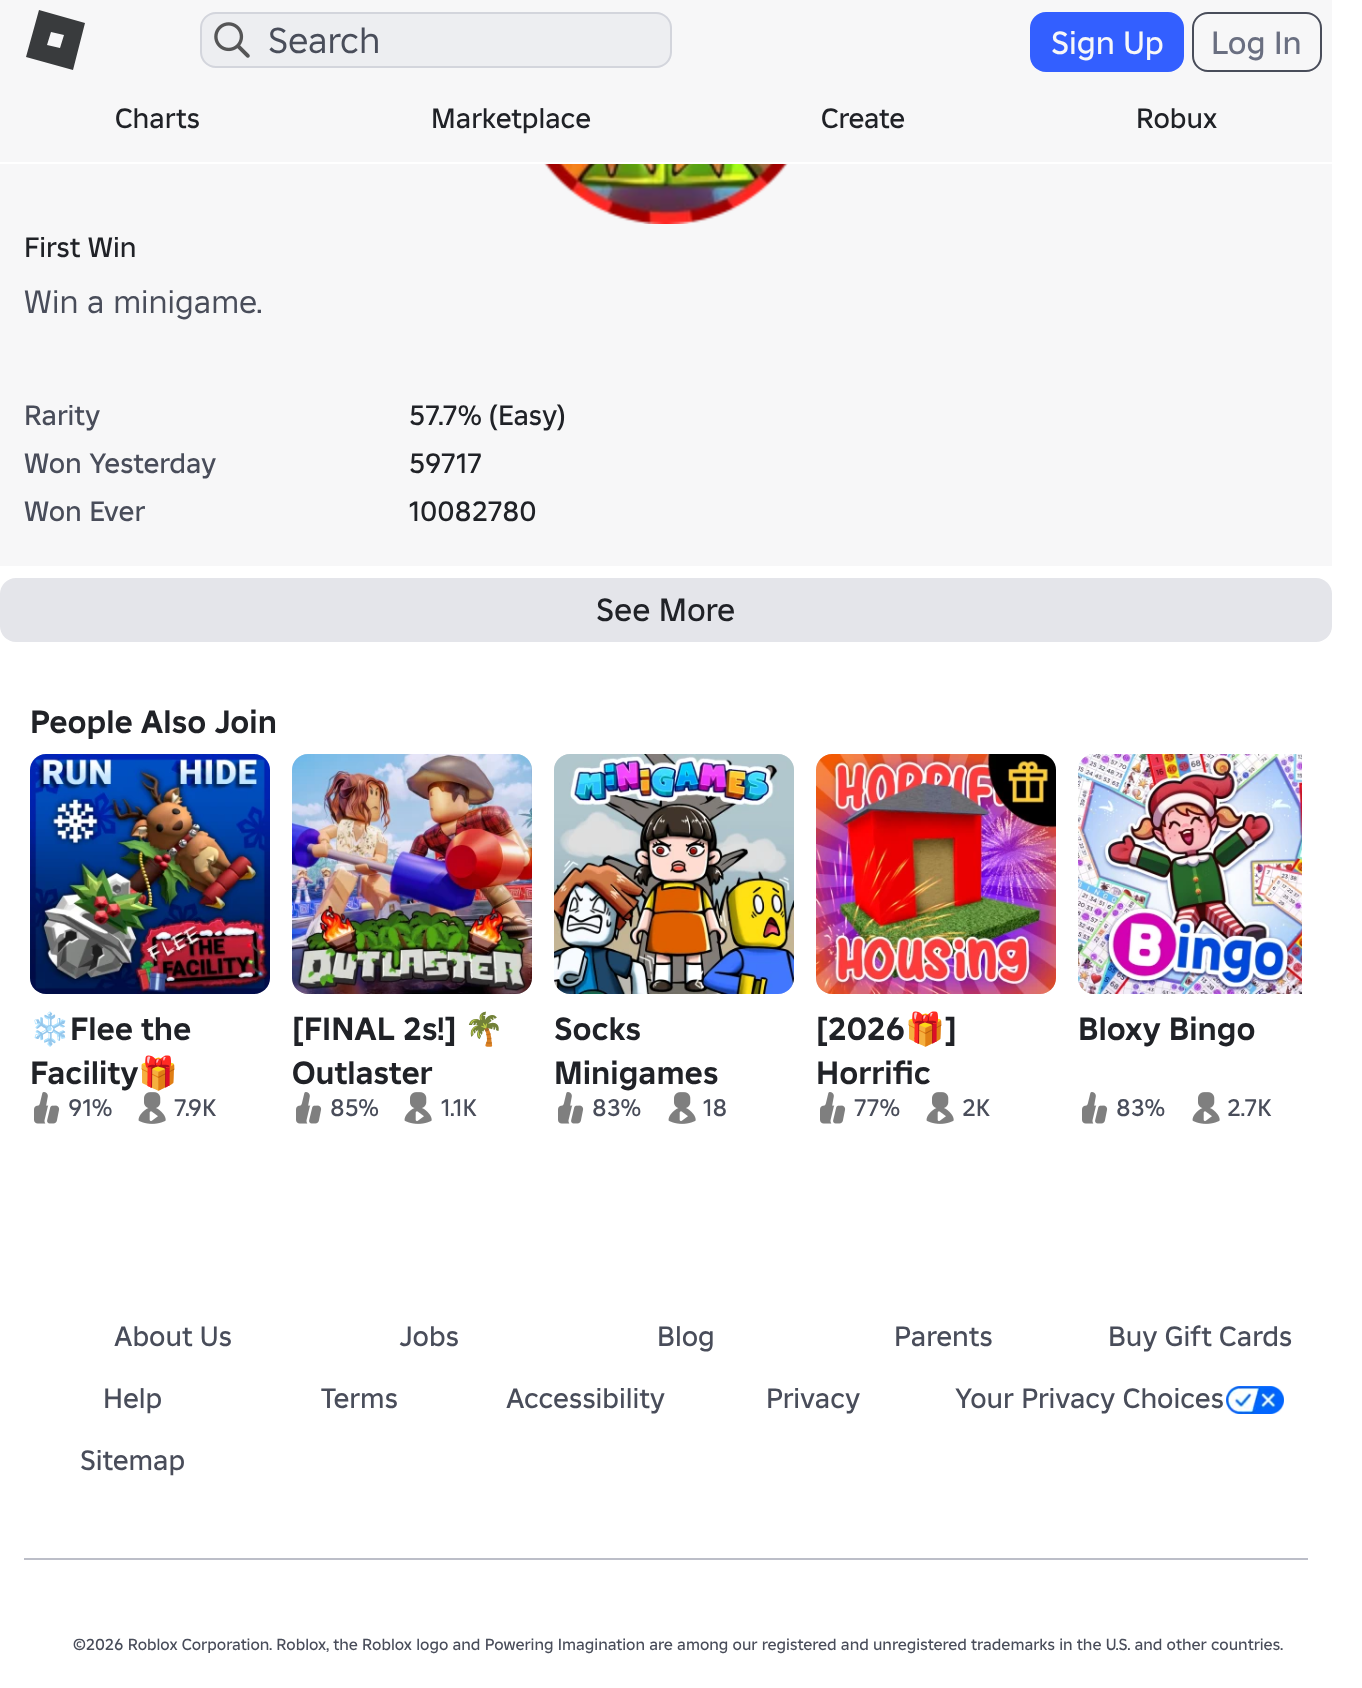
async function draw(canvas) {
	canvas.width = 1362;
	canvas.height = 1688;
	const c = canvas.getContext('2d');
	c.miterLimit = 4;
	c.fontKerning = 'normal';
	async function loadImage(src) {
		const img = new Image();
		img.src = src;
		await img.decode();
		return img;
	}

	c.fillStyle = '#fff';
	c.fillRect(0, 0, 1362, 1688);
	c.fillStyle = '#f7f7f8';
	c.fillRect(0, 0, 1332, 162);
	c.fillStyle = '#393b3d';
	c.beginPath();
	c.moveTo(39, 10);
	c.lineTo(26, 57);
	c.lineTo(73, 70);
	c.lineTo(85, 23);
	c.closePath();
	c.moveTo(60, 48);
	c.lineTo(47, 45);
	c.lineTo(51, 32);
	c.lineTo(64, 35);
	c.closePath();
	c.fill();
	c.fillStyle = '#fff';
	c.beginPath();
	c.roundRect(200, 12, 472, 56, 16);
	c.fill();
	c.fillStyle = '#1b254b14';
	c.beginPath();
	c.roundRect(200, 12, 472, 56, 16);
	c.fill();
	c.beginPath();
	c.roundRect(201, 13, 470, 54, 15);
	c.strokeStyle = '#1b254b1f';
	c.lineWidth = 2;
	c.stroke();
	c.drawImage(await loadImage('img1.png'), 214, 22, 36, 36);
	c.font = '36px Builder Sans';
	c.fillStyle = '#494d5a';
	c.fillText('Search', 268, 53);
	c.fillStyle = '#335fff';
	c.beginPath();
	c.roundRect(1030, 12, 154, 60, 16);
	c.fill();
	c.font = '500 32px Builder Sans';
	c.fillStyle = '#f7f7f8';
	c.fillText('Sign Up', 1051, 54);
	c.beginPath();
	c.roundRect(1193, 13, 128, 58, 15);
	c.strokeStyle = '#494d5a';
	c.stroke();
	c.fillStyle = '#6a6f81';
	c.fillText('Log In', 1211, 54);
	c.font = '500 28px Builder Sans';
	c.fillStyle = '#202227';
	for (const [text, x, y] of [
		['Charts', 115, 128],
		['Marketplace', 431, 128],
		['Create', 821, 128],
		['Robux', 1136, 128],
	]) {
		c.fillText(text, x, y);
	}
	c.fillStyle = '#f7f7f8';
	c.fillRect(0, 164, 1332, 402);
	c.drawImage(await loadImage('img2.png'), 544, 164, 244, 60);
	c.fillStyle = '#202227';
	c.fillText('First Win', 24, 257);
	c.font = '32px Builder Sans';
	c.fillStyle = '#494d5a';
	c.fillText('Win a minigame.', 24, 313);
	c.font = '500 28px Builder Sans';
	c.fillText('Rarity', 24, 425);
	c.fillStyle = '#202227';
	c.fillText('57.7% (Easy)', 409, 425);
	c.fillStyle = '#494d5a';
	c.fillText('Won Yesterday', 24, 473);
	c.fillStyle = '#202227';
	c.fillText('59717', 409, 473);
	c.fillStyle = '#494d5a';
	c.fillText('Won Ever', 24, 521);
	c.fillStyle = '#202227';
	c.fillText('10082780', 409, 521);
	c.fillStyle = '#e4e5ea';
	c.beginPath();
	c.roundRect(0, 578, 1332, 64, 16);
	c.fill();
	c.font = '500 32px Builder Sans';
	c.fillStyle = '#202227';
	c.fillText('See More', 596, 621);
	c.font = 'bold 32px Builder Sans';
	c.fillText('People Also Join', 30, 733);
	c.fillStyle = '#e4e5e9';
	c.beginPath();
	c.roundRect(30, 754, 240, 240, 16);
	c.fill();
	c.drawImage(await loadImage('img3.png'), 30, 754, 240, 240);
	c.font = 'bold 32px Noto Color Emoji';
	c.fillStyle = '#202227';
	c.fillText('❄️', 30, 1040);
	c.font = 'bold 32px Builder Sans';
	c.fillText('Flee the', 70, 1040);
	c.fillText('Facility', 30, 1084);
	c.font = 'bold 32px Noto Color Emoji';
	c.fillText('🎁', 138, 1084);
	c.drawImage(await loadImage('img4.png'), 34, 1092, 26, 32);
	c.font = '500 24px Builder Sans';
	c.fillStyle = '#494d5a';
	c.fillText('91%', 68, 1116);
	c.drawImage(await loadImage('img5.png'), 138, 1092, 28, 32);
	c.fillText('7.9K', 174, 1116);
	c.fillStyle = '#e4e5e9';
	c.beginPath();
	c.roundRect(292, 754, 240, 240, 16);
	c.fill();
	c.drawImage(await loadImage('img6.png'), 292, 754, 240, 240);
	c.font = 'bold 32px Builder Sans';
	c.fillStyle = '#202227';
	c.fillText('[FINAL 2s!]', 292, 1040);
	c.font = 'bold 32px Noto Color Emoji';
	c.fillText('🌴', 464, 1040);
	c.font = 'bold 32px Builder Sans';
	c.fillText('Outlaster', 292, 1084);
	c.drawImage(await loadImage('img4.png'), 296, 1092, 26, 32);
	c.font = '500 24px Builder Sans';
	c.fillStyle = '#494d5a';
	c.fillText('85%', 330, 1116);
	c.drawImage(await loadImage('img5.png'), 404, 1092, 28, 32);
	c.fillText('1.1K', 441, 1116);
	c.fillStyle = '#e4e5e9';
	c.beginPath();
	c.roundRect(554, 754, 240, 240, 16);
	c.fill();
	c.drawImage(await loadImage('img7.png'), 554, 754, 240, 240);
	c.font = 'bold 32px Builder Sans';
	c.fillStyle = '#202227';
	c.fillText('Socks', 554, 1040);
	c.fillText('Minigames', 554, 1084);
	c.drawImage(await loadImage('img4.png'), 558, 1092, 26, 32);
	c.font = '500 24px Builder Sans';
	c.fillStyle = '#494d5a';
	c.fillText('83%', 592, 1116);
	c.drawImage(await loadImage('img5.png'), 668, 1092, 28, 32);
	c.fillText('18', 703, 1116);
	c.fillStyle = '#e4e5e9';
	c.beginPath();
	c.roundRect(816, 754, 240, 240, 16);
	c.fill();
	c.drawImage(await loadImage('img8.png'), 816, 754, 240, 240);
	c.font = 'bold 32px Builder Sans';
	c.fillStyle = '#202227';
	c.fillText('[2026', 816, 1040);
	c.font = 'bold 32px Noto Color Emoji';
	c.fillText('🎁', 905, 1040);
	c.font = 'bold 32px Builder Sans';
	c.fillText(']', 945, 1040);
	c.fillText('Horrific', 816, 1084);
	c.drawImage(await loadImage('img4.png'), 820, 1092, 26, 32);
	c.font = '500 24px Builder Sans';
	c.fillStyle = '#494d5a';
	c.fillText('77%', 854, 1116);
	c.drawImage(await loadImage('img5.png'), 926, 1092, 28, 32);
	c.fillText('2K', 962, 1116);
	c.fillStyle = '#e4e5e9';
	c.beginPath();
	c.roundRect(1078, 754, 224, 240, [16, 0, 0, 16]);
	c.fill();
	c.drawImage(await loadImage('img9.png'), 1078, 754, 224, 240);
	c.font = 'bold 32px Builder Sans';
	c.fillStyle = '#202227';
	c.fillText('Bloxy Bingo', 1078, 1040);
	c.drawImage(await loadImage('img4.png'), 1082, 1092, 26, 32);
	c.font = '500 24px Builder Sans';
	c.fillStyle = '#494d5a';
	c.fillText('83%', 1116, 1116);
	c.drawImage(await loadImage('img5.png'), 1192, 1092, 28, 32);
	c.fillText('2.7K', 1227, 1116);
	c.font = '500 28px Builder Sans';
	for (const [text, x, y] of [
		['About Us', 114, 1346],
		['Jobs', 399, 1346],
		['Blog', 657, 1346],
		['Parents', 894, 1346],
		['Buy Gift Cards', 1108, 1346],
		['Help', 103, 1408],
		['Terms', 321, 1408],
		['Accessibility', 506, 1408],
		['Privacy', 766, 1408],
		['Your Privacy Choices', 955, 1408],
	]) {
		c.fillText(text, x, y);
	}
	c.drawImage(await loadImage('img10.png'), 1226, 1386, 58, 28);
	c.fillText('Sitemap', 80, 1470);
	c.fillStyle = '#bcbec8';
	c.fillRect(24, 1558, 1284, 2);
	c.font = '500 16px Builder Sans';
	c.fillStyle = '#494d5a';
	c.fillText('©2026 Roblox Corporation. Roblox, the Roblox logo and Powering Imagination are among our registered and unregistered trademarks in the U.S. and other countries.', 73, 1650);
}

draw(document.querySelector('canvas'));
